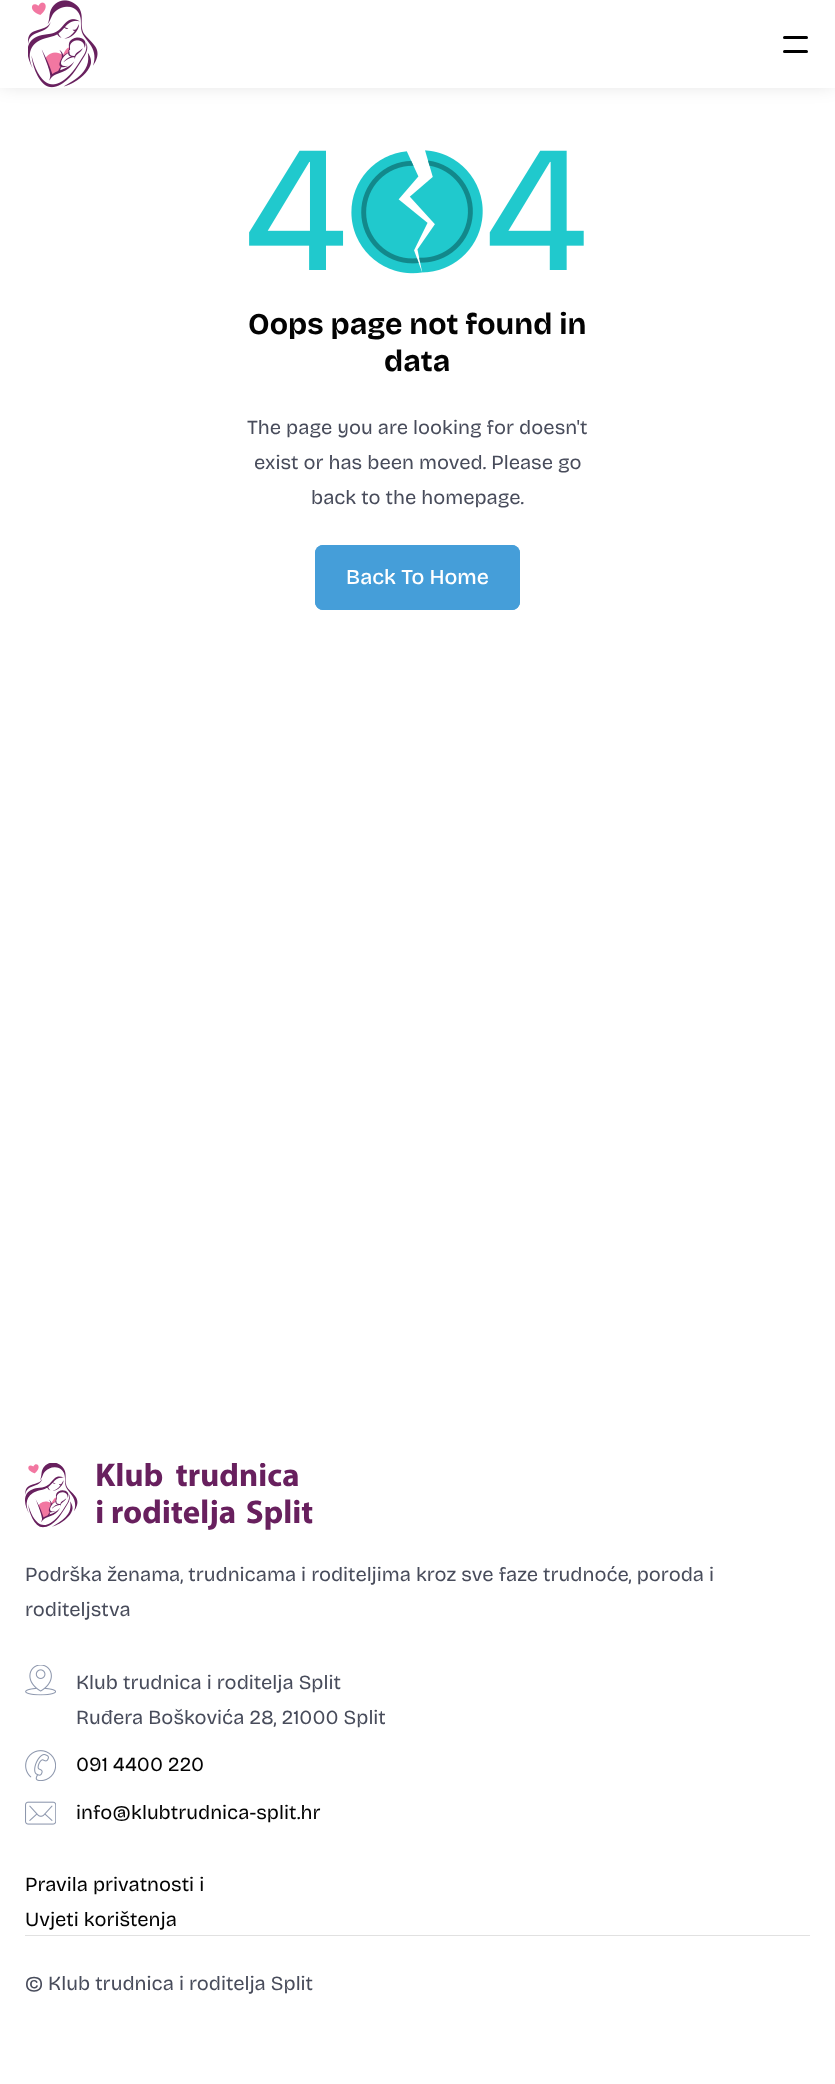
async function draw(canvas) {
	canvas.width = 835;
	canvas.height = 2084;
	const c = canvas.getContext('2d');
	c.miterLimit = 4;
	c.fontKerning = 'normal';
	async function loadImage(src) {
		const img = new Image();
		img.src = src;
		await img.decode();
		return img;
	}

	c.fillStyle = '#fff';
	c.fillRect(0, 0, 835, 2084);
	c.fillStyle = '#00000033';
	c.filter = 'blur(10.5px)';
	c.beginPath();
	c.rect(1, -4, 833, 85);
	c.fill();
	c.filter = 'none';
	c.fillStyle = '#fff';
	c.fillRect(0, 0, 835, 88);
	c.drawImage(await loadImage('img1.png'), 28, 0, 70, 88);
	c.fillStyle = '#000';
	c.beginPath();
	c.roundRect(783, 36, 25, 3, 1.5);
	c.fill();
	c.beginPath();
	c.roundRect(783, 50, 25, 3, 1.5);
	c.fill();
	c.drawImage(await loadImage('img2.png'), 249, 150, 335, 124);
	c.font = 'bold 30px Bricolage Grotesque';
	c.fillStyle = '#030303';
	c.fillText('Oops page not found in', 248, 334);
	c.fillText('data', 384, 371);
	c.font = '20px Bricolage Grotesque';
	c.fillStyle = '#484c5b';
	for (const [text, x, y] of [
		['The page you are looking for doesn\'t', 247, 434],
		['exist or has been moved. Please go', 254, 469],
		['back to the homepage.', 311, 504],
	]) {
		c.fillText(text, x, y);
	}
	c.fillStyle = '#459ed9';
	c.beginPath();
	c.roundRect(315, 545, 205, 65, 8);
	c.fill();
	c.beginPath();
	c.roundRect(315.5, 545.5, 204, 64, 7.5);
	c.strokeStyle = '#459ed9';
	c.stroke();
	c.font = '500 21.25px Bricolage Grotesque';
	c.fillStyle = '#fff';
	c.fillText('Back To Home', 346, 584);
	c.drawImage(await loadImage('img3.png'), 25, 1463, 288, 67);
	c.font = '20px Bricolage Grotesque';
	c.fillStyle = '#484c5b';
	c.fillText('Podrška ženama, trudnicama i roditeljima kroz sve faze trudnoće, poroda i', 25, 1581);
	c.fillText('roditeljstva', 25, 1616);
	c.drawImage(await loadImage('img4.png'), 25, 1665, 31, 31);
	c.fillText('Klub trudnica i roditelja Split', 76, 1689);
	c.fillText('Ruđera Boškovića 28, 21000 Split', 76, 1724);
	c.drawImage(await loadImage('img5.png'), 25, 1750, 31, 31);
	c.fillStyle = '#030303';
	c.fillText('091 4400 220', 76, 1771);
	c.drawImage(await loadImage('img6.png'), 25, 1801, 31, 24);
	for (const [text, x, y] of [
		['info@klubtrudnica-split.hr', 76, 1819],
		['Pravila privatnosti i', 25, 1891],
		['Uvjeti korištenja', 25, 1926],
	]) {
		c.fillText(text, x, y);
	}
	c.fillStyle = '#e1e1e1';
	c.fillRect(25, 1935, 785, 1);
	c.fillStyle = '#484c5b';
	c.fillText('© Klub trudnica i roditelja Split', 25, 1990);
}

draw(document.querySelector('canvas'));
